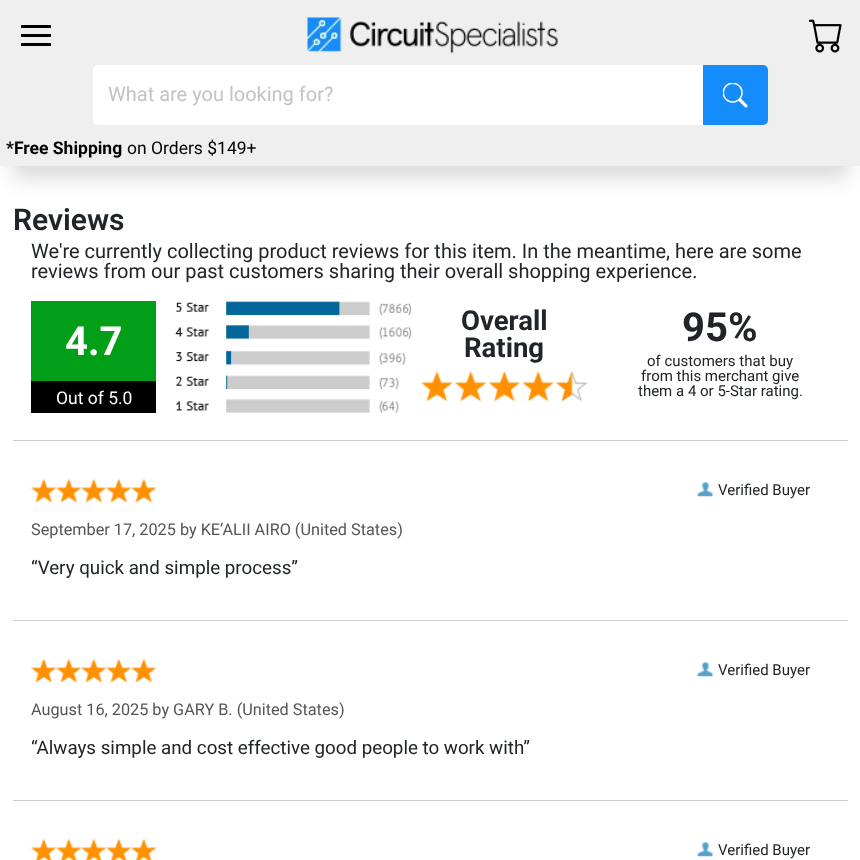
async function draw(canvas) {
	canvas.width = 860;
	canvas.height = 860;
	const c = canvas.getContext('2d');
	c.miterLimit = 4;
	c.fontKerning = 'normal';
	async function loadImage(src) {
		const img = new Image();
		img.src = src;
		await img.decode();
		return img;
	}

	c.fillStyle = '#fff';
	c.fillRect(0, 0, 860, 860);
	c.fillStyle = '#00000026';
	c.filter = 'blur(10px)';
	c.beginPath();
	c.rect(13, -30, 835, 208);
	c.fill();
	c.filter = 'none';
	c.fillStyle = '#fff';
	c.beginPath();
	c.roundRect(13, 103, 835, 65, [0, 0, 8, 8]);
	c.fill();
	c.fillStyle = '#dee2e6';
	c.beginPath();
	c.moveTo(12, 102);
	c.lineTo(848, 102);
	c.lineTo(848, 160);
	c.bezierCurveTo(848, 164, 844, 168, 840, 168);
	c.lineTo(20, 168);
	c.bezierCurveTo(16, 168, 12, 164, 12, 160);
	c.closePath();
	c.moveTo(14, 102);
	c.lineTo(846, 102);
	c.lineTo(846, 160);
	c.bezierCurveTo(846, 163, 843, 166, 840, 166);
	c.lineTo(20, 166);
	c.bezierCurveTo(17, 166, 14, 163, 14, 160);
	c.closePath();
	c.fill('evenodd');
	for (const [x, y, w, h, color] of [
		[0, 0, 860, 166, '#efefef'],
		[21, 25, 30, 3, '#000'],
		[21, 34, 30, 3, '#000'],
		[21, 43, 30, 3, '#000'],
	]) {
		c.fillStyle = color;
		c.fillRect(x, y, w, h);
	}
	c.drawImage(await loadImage('img1.png'), 307, 17, 251, 36);
	c.drawImage(await loadImage('img2.png'), 809, 19, 33, 34);
	c.fillStyle = '#fff';
	c.beginPath();
	c.roundRect(93, 65, 611, 60, [5, 0, 0, 5]);
	c.fill();
	c.font = '20px Roboto';
	c.fillStyle = '#c4c3c3';
	c.fillText('What are you looking for?', 108, 101);
	c.fillStyle = '#158cfb';
	c.beginPath();
	c.roundRect(703, 65, 65, 60, [0, 5, 5, 0]);
	c.fill();
	c.drawImage(await loadImage('img3.png'), 723, 83, 25, 25);
	c.font = 'bold 17.5px Roboto';
	c.fillStyle = '#000';
	c.fillText('*Free Shipping', 6, 154);
	c.font = '17.5px Roboto';
	c.fillText('on Orders $149+', 127, 154);
	c.font = '600 30px Roboto';
	c.fillStyle = '#212529';
	c.fillText('Reviews', 13, 230);
	c.fillStyle = '#ccc';
	c.fillRect(13, 440, 835, 1);
	c.font = '20px Roboto';
	c.fillStyle = '#212529';
	c.fillText('We\'re currently collecting product reviews for this item. In the meantime, here are some', 31, 258);
	c.fillText('reviews from our past customers sharing their overall shopping experience.', 31, 278);
	c.fillStyle = '#019f17';
	c.fillRect(31, 301, 125, 80);
	c.font = 'bold 40px Roboto';
	c.fillStyle = '#fff';
	c.fillText('4.7', 65, 355);
	c.fillStyle = '#000';
	c.fillRect(31, 381, 125, 32);
	c.font = '17.5px Roboto';
	c.fillStyle = '#fff';
	c.fillText('Out of 5.0', 56, 404);
	c.drawImage(await loadImage('img4.png'), 175, 301, 237, 112);
	c.font = 'bold 27.5px Roboto';
	c.fillStyle = '#212529';
	c.fillText('Overall', 461, 330);
	c.fillText('Rating', 464, 357);
	c.drawImage(await loadImage('img5.png'), 421, 371, 32, 31);
	c.drawImage(await loadImage('img6.png'), 455, 371, 32, 31);
	c.drawImage(await loadImage('img7.png'), 488, 371, 32, 31);
	c.drawImage(await loadImage('img8.png'), 522, 371, 32, 31);
	c.drawImage(await loadImage('img9.png'), 556, 371, 32, 31);
	c.font = 'bold 40px Roboto';
	c.fillText('95%', 682, 341);
	c.font = '15px Roboto';
	for (const [text, x, y] of [
		['of customers that buy', 647, 366],
		['from this merchant give', 641, 381],
		['them a 4 or 5-Star rating.', 638, 396],
	]) {
		c.fillText(text, x, y);
	}
	c.fillStyle = '#ccc';
	c.fillRect(13, 620, 835, 1);
	c.drawImage(await loadImage('img10.png'), 31, 478, 26, 25);
	c.drawImage(await loadImage('img11.png'), 56, 478, 26, 25);
	c.drawImage(await loadImage('img11.png'), 81, 478, 26, 25);
	c.drawImage(await loadImage('img11.png'), 106, 478, 26, 25);
	c.drawImage(await loadImage('img11.png'), 131, 478, 26, 25);
	c.drawImage(await loadImage('img12.png'), 697, 482, 16, 15);
	c.fillStyle = '#212529';
	c.fillText('Verified Buyer', 718, 495);
	c.font = '16.25px Roboto';
	c.fillStyle = '#555';
	c.fillText('September 17, 2025 by KE’ALII AIRO (United States)', 31, 535);
	c.font = '18.75px Roboto';
	c.fillStyle = '#212529';
	c.fillText('“Very quick and simple process”', 31, 574);
	c.fillStyle = '#ccc';
	c.fillRect(13, 800, 835, 1);
	c.drawImage(await loadImage('img13.png'), 31, 658, 26, 25);
	c.drawImage(await loadImage('img14.png'), 56, 658, 26, 25);
	c.drawImage(await loadImage('img14.png'), 81, 658, 26, 25);
	c.drawImage(await loadImage('img14.png'), 106, 658, 26, 25);
	c.drawImage(await loadImage('img14.png'), 131, 658, 26, 25);
	c.drawImage(await loadImage('img15.png'), 697, 662, 16, 15);
	c.font = '15px Roboto';
	c.fillStyle = '#212529';
	c.fillText('Verified Buyer', 718, 675);
	c.font = '16.25px Roboto';
	c.fillStyle = '#555';
	c.fillText('August 16, 2025 by GARY B. (United States)', 31, 715);
	c.font = '18.75px Roboto';
	c.fillStyle = '#212529';
	c.fillText('“Always simple and cost effective good people to work with”', 31, 754);
	c.drawImage(await loadImage('img16.png'), 31, 838, 26, 22);
	c.drawImage(await loadImage('img17.png'), 56, 838, 26, 22);
	c.drawImage(await loadImage('img17.png'), 81, 838, 26, 22);
	c.drawImage(await loadImage('img17.png'), 106, 838, 26, 22);
	c.drawImage(await loadImage('img17.png'), 131, 838, 26, 22);
	c.drawImage(await loadImage('img12.png'), 697, 842, 16, 15);
	c.font = '15px Roboto';
	c.fillText('Verified Buyer', 718, 855);
}

draw(document.querySelector('canvas'));
